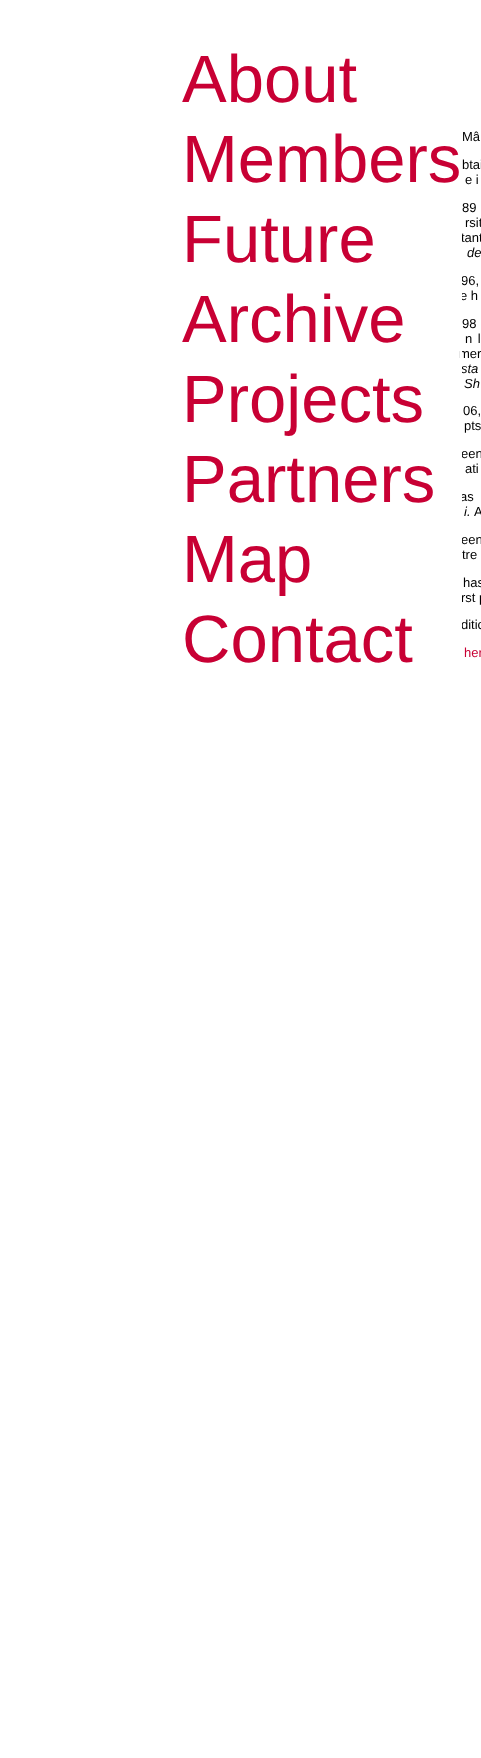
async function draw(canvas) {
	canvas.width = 481;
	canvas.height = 1758;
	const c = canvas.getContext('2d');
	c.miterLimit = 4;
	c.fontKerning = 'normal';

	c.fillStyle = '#fff';
	c.fillRect(0, 0, 481, 1758);
	c.font = '13px Liberation Sans';
	c.fillStyle = '#000';
	c.fillText('tant', 461, 242);
	c.wordSpacing = '1px';
	c.fillText('96,', 461, 285);
	c.wordSpacing = '0px';
	c.fillText('e h', 460, 300);
	c.wordSpacing = '2px';
	c.fillText('mer', 459, 358);
	c.font = 'italic 13px Liberation Sans';
	c.fillText('sta', 461, 373);
	c.wordSpacing = '6px';
	c.font = '13px Liberation Sans';
	c.fillText('een', 461, 458);
	c.wordSpacing = '0px';
	c.fillText('as', 460, 501);
	c.wordSpacing = '2px';
	c.fillText('een', 461, 544);
	c.wordSpacing = '0px';
	for (const [text, x, y] of [
		['tre', 462, 559],
		['rst p', 461, 602],
		['ditio', 461, 629],
	]) {
		c.fillText(text, x, y);
	}
	c.fillStyle = '#fff';
	c.fillRect(460, 235, 2, 394);
	c.font = '67px Liberation Sans';
	c.fillStyle = '#c80034';
	for (const [text, x, y] of [
		['About', 182, 102],
		['Members', 182, 182],
		['Future', 182, 262],
		['Archive', 182, 342],
		['Projects', 182, 422],
		['Partners', 182, 502],
		['Map', 182, 582],
		['Contact', 182, 662],
	]) {
		c.fillText(text, x, y);
	}
	c.font = '13px Liberation Sans';
	c.fillStyle = '#000';
	c.fillText('Mâ', 462, 141);
	c.wordSpacing = '2px';
	c.fillText('btai', 462, 169);
	c.wordSpacing = '0px';
	c.fillText('e i', 465, 184);
	c.wordSpacing = '1px';
	c.fillText('89', 462, 212);
	c.wordSpacing = '2px';
	c.fillText('rsit', 465, 227);
	c.wordSpacing = '0px';
	c.font = 'italic 13px Liberation Sans';
	c.fillText('de', 467, 257);
	c.wordSpacing = '1px';
	c.font = '13px Liberation Sans';
	c.fillText('98', 462, 328);
	c.wordSpacing = '2px';
	c.fillText('n l', 465, 343);
	c.wordSpacing = '0px';
	c.font = 'italic 13px Liberation Sans';
	c.fillText('Sh', 464, 388);
	c.wordSpacing = '2px';
	c.font = '13px Liberation Sans';
	c.fillText('06,', 463, 415);
	c.wordSpacing = '0px';
	c.fillText('pts', 464, 430);
	c.fillText('ati', 465, 473);
	c.font = 'italic 13px Liberation Sans';
	c.fillText('i.', 464, 516);
	c.font = '13px Liberation Sans';
	c.fillText('A', 474, 516);
	c.wordSpacing = '1px';
	c.fillText('has', 463, 587);
	c.wordSpacing = '0px';
	c.fillStyle = '#c80034';
	c.fillText('her', 464, 657);
}

draw(document.querySelector('canvas'));
